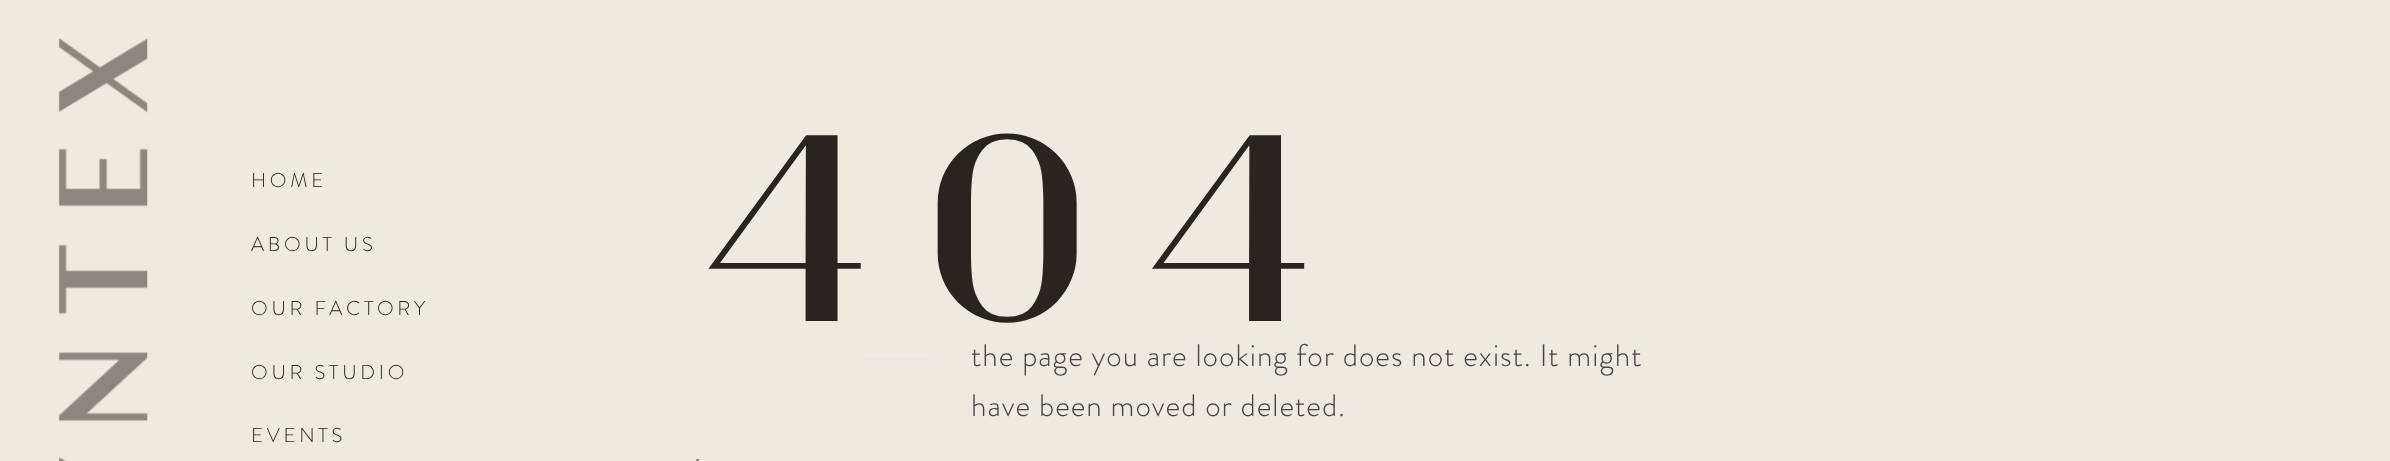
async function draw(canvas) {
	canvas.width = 2390;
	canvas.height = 461;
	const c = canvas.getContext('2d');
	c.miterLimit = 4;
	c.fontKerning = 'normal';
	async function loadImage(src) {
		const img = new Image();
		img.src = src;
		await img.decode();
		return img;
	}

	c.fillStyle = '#eeeae1';
	c.fillRect(0, 0, 2390, 461);
	c.drawImage(await loadImage('img1.png'), 58, 38, 90, 423);
	c.letterSpacing = '3.75px';
	c.font = '300 20px Brandon Grotesque';
	c.fillStyle = '#292420';
	for (const [text, x, y] of [
		['HOME', 251, 187],
		['ABOUT US', 251, 251],
		['OUR FACTORY', 251, 315],
		['OUR STUDIO', 251, 379],
		['EVENTS', 251, 442],
	]) {
		c.fillText(text, x, y);
	}
	c.letterSpacing = '42.5px';
	c.font = '282.5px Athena';
	c.fillText('404', 696, 321);
	c.fillStyle = '#f2e9e9';
	c.fillRect(859, 353, 69, 4);
	c.letterSpacing = '1px';
	c.font = '300 31.25px Brandon Grotesque';
	c.fillStyle = '#414347';
	c.fillText('the page you are looking for does not exist. It might', 971, 366);
	c.fillText('have been moved or deleted.', 971, 416);
	c.fillStyle = '#898989';
	c.fillRect(696, 459, 3, 2);
}

draw(document.querySelector('canvas'));
